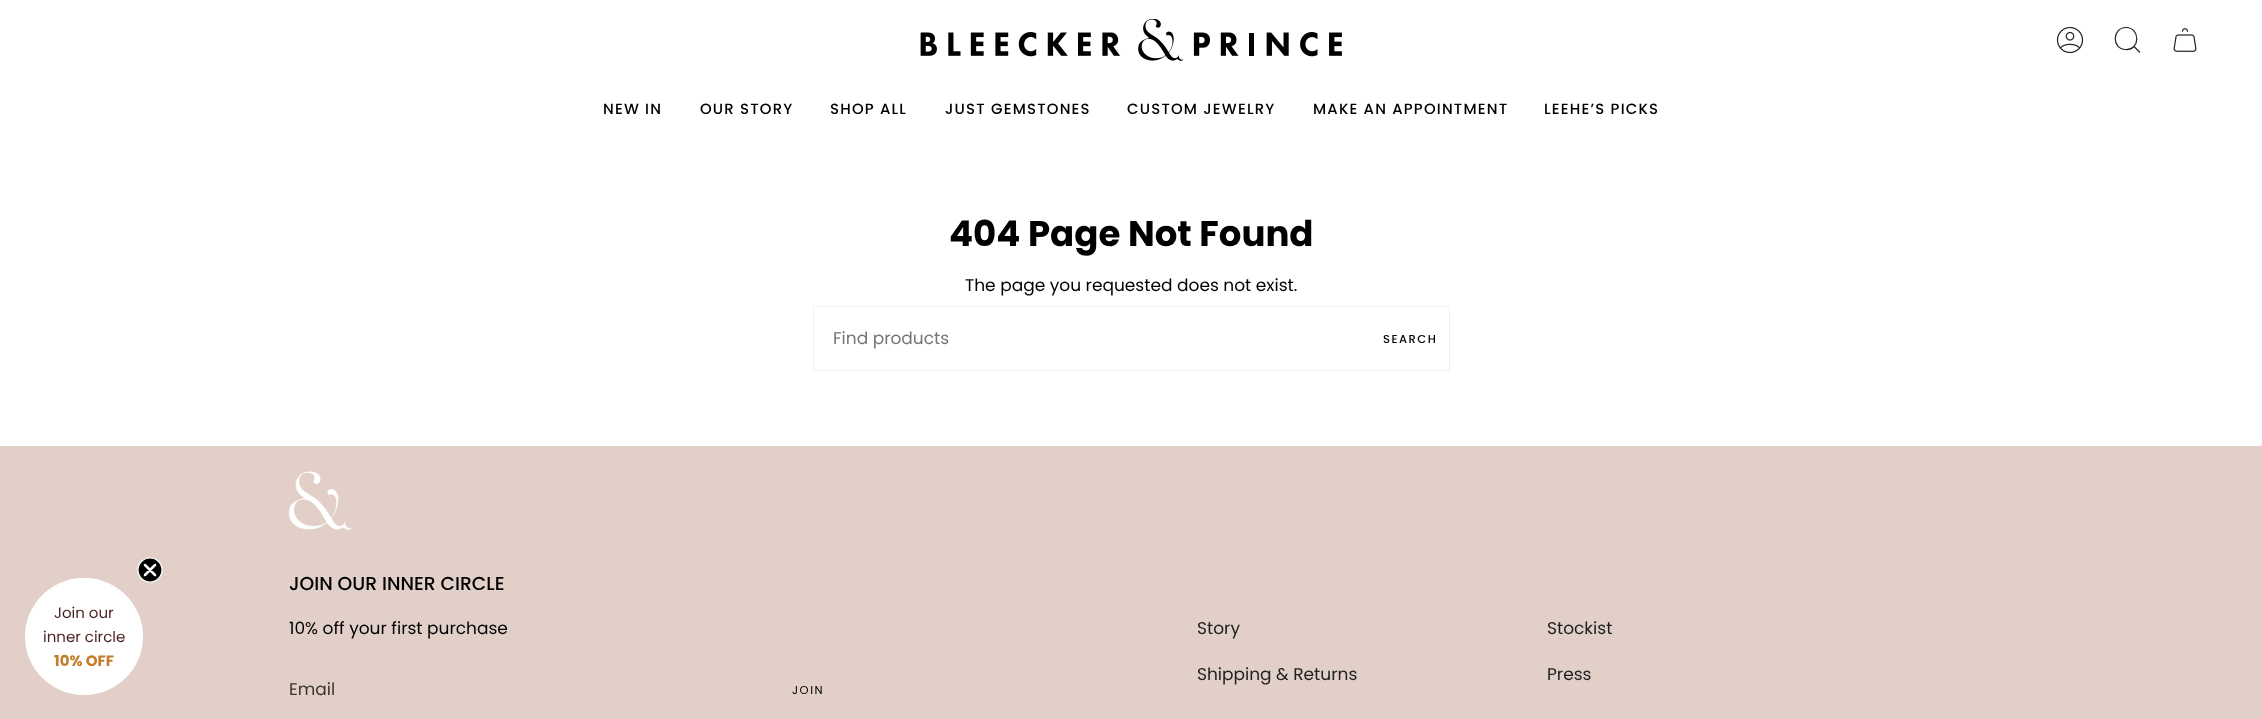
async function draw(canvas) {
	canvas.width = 2262;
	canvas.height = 719;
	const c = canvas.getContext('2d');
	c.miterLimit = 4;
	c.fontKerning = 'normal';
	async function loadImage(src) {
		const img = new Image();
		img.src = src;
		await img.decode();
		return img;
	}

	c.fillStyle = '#fff';
	c.fillRect(0, 0, 2262, 719);
	c.drawImage(await loadImage('img1.png'), 920, 19, 422, 42);
	c.drawImage(await loadImage('img2.png'), 2056, 26, 28, 28);
	c.beginPath();
	c.moveTo(2126, 27.5);
	c.bezierCurveTo(2140.5, 27.5, 2140.5, 50.5, 2125.5, 49.5);
	c.bezierCurveTo(2111.5, 49, 2112, 27.5, 2126, 27.5);
	c.closePath();
	c.moveTo(2134, 46.5);
	c.lineTo(2140, 52.5);
	c.strokeStyle = '#212121';
	c.lineWidth = 1.2;
	c.stroke();
	c.drawImage(await loadImage('img3.png'), 2173, 28, 24, 24);
	c.letterSpacing = '1.2px';
	c.font = '500 14.9px Poppins';
	c.fillStyle = '#000';
	for (const [text, x, y] of [
		['NEW IN', 603, 114],
		['OUR STORY', 700, 114],
		['SHOP ALL', 830, 114],
		['JUST GEMSTONES', 945, 114],
		['CUSTOM JEWELRY', 1127, 114],
		['MAKE AN APPOINTMENT', 1313, 114],
		['LEEHE’S PICKS', 1544, 114],
	]) {
		c.fillText(text, x, y);
	}
	c.letterSpacing = '0px';
	c.font = 'bold 35.6px Poppins';
	c.fillText('404 Page Not Found', 949, 246);
	c.font = '17px Poppins';
	c.fillText('The page you requested does not exist.', 965, 291);
	c.strokeStyle = '#f0f0f0';
	c.lineWidth = 1;
	c.strokeRect(813.5, 306.5, 636, 64);
	c.fillStyle = '#757575';
	c.fillText('Find products', 833, 344);
	c.letterSpacing = '1.5px';
	c.font = '500 11.5px Poppins';
	c.fillStyle = '#000';
	c.fillText('SEARCH', 1383, 343);
	c.fillStyle = '#e2d0c8';
	c.fillRect(0, 446, 2262, 273);
	c.fillStyle = '#fff';
	c.beginPath();
	c.roundRect(25, 578, 118, 117, 58.5);
	c.fill();
	c.fillStyle = '#000';
	c.beginPath();
	c.arc(150, 570, 12, 0, 2 * Math.PI);
	c.fill();
	c.strokeStyle = '#fff';
	c.lineWidth = 1.2;
	c.stroke();
	c.beginPath();
	c.moveTo(145, 565);
	c.lineTo(155, 575);
	c.moveTo(145, 575);
	c.lineTo(155, 565);
	c.closePath();
	c.lineWidth = 2.5;
	c.lineCap = 'round';
	c.lineJoin = 'round';
	c.stroke();
	c.letterSpacing = '0px';
	c.font = '15px "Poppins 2"';
	c.fillStyle = '#481f1f';
	c.fillText('Join our', 54, 618);
	c.fillText('inner circle', 43, 642);
	c.font = 'bold 15px "Poppins 2"';
	c.fillStyle = '#c57c2a';
	c.fillText('10% OFF', 54, 666);
	c.drawImage(await loadImage('img4.png'), 288, 471, 64, 59);
	c.font = '500 18.75px Poppins';
	c.fillStyle = '#000';
	c.fillText('JOIN OUR INNER CIRCLE', 289, 590);
	c.font = '17px Poppins';
	c.fillText('10% off your first purchase', 289, 634);
	c.fillStyle = '#393432';
	c.fillText('Email', 289, 695);
	c.letterSpacing = '1.5px';
	c.font = '11.5px Poppins';
	c.fillStyle = '#000';
	c.fillText('JOIN', 792, 694);
	c.letterSpacing = '0px';
	c.font = '17px Poppins';
	c.fillStyle = '#212121';
	for (const [text, x, y] of [
		['Story', 1197, 634],
		['Shipping & Returns', 1197, 680],
		['Stockist', 1547, 634],
		['Press', 1547, 680],
	]) {
		c.fillText(text, x, y);
	}
}

draw(document.querySelector('canvas'));
